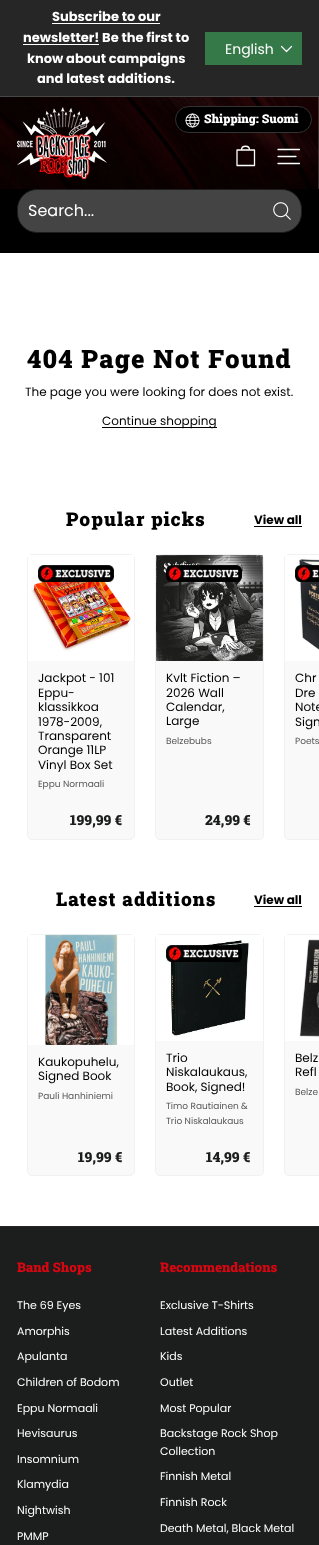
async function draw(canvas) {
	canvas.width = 319;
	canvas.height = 1545;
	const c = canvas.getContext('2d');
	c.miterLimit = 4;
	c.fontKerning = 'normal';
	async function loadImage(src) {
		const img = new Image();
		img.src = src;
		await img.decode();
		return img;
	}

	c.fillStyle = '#fff';
	c.fillRect(0, 0, 319, 1545);
	c.fillStyle = '#262626';
	c.fillRect(0, 0, 319, 96);
	c.font = 'bold 13px Poppins';
	c.fillStyle = '#fff';
	c.fillText('Subscribe to our', 52, 21);
	c.fillRect(52, 23, 108, 1);
	c.fillText('newsletter! Be the first to', 23, 42);
	c.fillRect(23, 44, 76, 1);
	c.fillText('know about campaigns', 27, 63);
	c.fillText('and latest additions.', 37, 83);
	c.fillStyle = '#367949';
	c.fillRect(205, 32, 97, 33);
	c.font = '14px Poppins';
	c.fillStyle = '#fff';
	c.fillText('English', 225, 54);
	c.beginPath();
	c.moveTo(281.5, 46.5);
	c.lineTo(286.5, 51.5);
	c.lineTo(291.5, 46.5);
	c.strokeStyle = '#fff';
	c.lineWidth = 1.2;
	c.lineCap = 'round';
	c.lineJoin = 'round';
	c.stroke();
	c.fillStyle = '#474747';
	c.fillRect(0, 96, 319, 1);
	c.drawImage(await loadImage('img1.png'), 0, 97, 319, 92);
	c.drawImage(await loadImage('img2.png'), 17, 107, 90, 72);
	c.fillStyle = '#000';
	c.beginPath();
	c.roundRect(175.5, 106.5, 136, 26, 13);
	c.fill();
	c.strokeStyle = '#333';
	c.lineWidth = 1;
	c.lineJoin = 'miter';
	c.stroke();
	c.drawImage(await loadImage('img3.png'), 185, 113, 15, 15);
	c.font = '900 12px Roboto Slab';
	c.fillStyle = '#fff';
	c.fillText('Shipping: Suomi', 204, 123);
	c.beginPath();
	c.moveTo(241.5, 150);
	c.bezierCurveTo(241.5, 145, 249.5, 145, 249.5, 150);
	c.moveTo(237, 150);
	c.lineTo(254.5, 150);
	c.lineTo(254.5, 165.5);
	c.lineTo(237, 165.5);
	c.closePath();
	c.strokeStyle = '#fff';
	c.lineWidth = 1.3;
	c.lineJoin = 'round';
	c.stroke();
	c.beginPath();
	c.moveTo(278, 149.5);
	c.lineTo(299.5, 149.5);
	c.moveTo(278, 156.5);
	c.lineTo(296, 156.5);
	c.moveTo(278, 163.5);
	c.lineTo(299.5, 163.5);
	c.stroke();
	c.fillStyle = '#000';
	c.fillRect(0, 189, 319, 64);
	c.fillStyle = '#444';
	c.beginPath();
	c.roundRect(17.5, 189.5, 284, 43, 19.5);
	c.fill();
	c.strokeStyle = '#1d1d1d';
	c.lineWidth = 1;
	c.lineJoin = 'miter';
	c.stroke();
	c.font = '16px Poppins';
	c.fillStyle = '#fff';
	c.fillText('Search...', 28, 216);
	c.drawImage(await loadImage('img4.png'), 273, 202, 18, 18);
	c.letterSpacing = '1.25px';
	c.font = '900 25.5px Roboto Slab';
	c.fillStyle = '#000';
	c.fillText('404 Page Not Found', 27, 368);
	c.letterSpacing = '0px';
	c.font = '12px Poppins';
	c.fillText('The page you were looking for does not exist.', 25, 396);
	c.fillRect(102, 427, 115, 1);
	c.fillText('Continue shopping', 102, 425);
	c.letterSpacing = '1px';
	c.font = '900 19px Roboto Slab';
	c.fillText('Popular picks', 66, 526);
	c.letterSpacing = '0px';
	c.font = 'bold 12px Poppins';
	c.fillText('View all', 254, 524);
	c.fillRect(254, 526, 48, 1);
	c.fillStyle = '#f9f9f9';
	c.beginPath();
	c.roundRect(27.5, 554.5, 107, 285, 4.5);
	c.fill();
	c.strokeStyle = '#f1f1f1';
	c.stroke();
	c.drawImage(await loadImage('img5.png'), 28, 555, 106, 106);
	c.drawImage(await loadImage('img6.png'), 38, 565, 76, 17);
	c.font = '12px Poppins';
	c.fillStyle = '#000';
	for (const [text, x, y] of [
		['Jackpot - 101', 38, 682],
		['Eppu-', 38, 697],
		['klassikkoa', 38, 711],
		['1978-2009,', 38, 726],
		['Transparent', 38, 740],
		['Orange 11LP', 38, 754],
		['Vinyl Box Set', 38, 769],
	]) {
		c.fillText(text, x, y);
	}
	c.font = '9px Poppins';
	c.fillStyle = '#575757';
	c.fillText('Eppu Normaali', 38, 787);
	c.font = '900 14px Roboto Slab';
	c.fillStyle = '#1c1d1d';
	c.fillText('199,99 €', 70, 825);
	c.fillStyle = '#f9f9f9';
	c.beginPath();
	c.roundRect(155.5, 554.5, 108, 285, 4.5);
	c.fill();
	c.stroke();
	c.drawImage(await loadImage('img7.png'), 156, 555, 107, 106);
	c.drawImage(await loadImage('img8.png'), 166, 565, 76, 17);
	c.font = '12px Poppins';
	c.fillStyle = '#000';
	for (const [text, x, y] of [
		['Kvlt Fiction –', 166, 682],
		['2026 Wall', 166, 697],
		['Calendar,', 166, 711],
		['Large', 166, 725],
	]) {
		c.fillText(text, x, y);
	}
	c.font = '9px Poppins';
	c.fillStyle = '#575757';
	c.fillText('Belzebubs', 166, 744);
	c.font = '900 14px Roboto Slab';
	c.fillStyle = '#1c1d1d';
	c.fillText('24,99 €', 205, 825);
	c.fillStyle = '#f9f9f9';
	c.beginPath();
	c.roundRect(284, 554, 35, 286, [5, 0, 0, 5]);
	c.fill();
	c.beginPath();
	c.roundRect(284.5, 554.5, 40, 285, 4.5);
	c.stroke();
	c.drawImage(await loadImage('img9.png'), 285, 555, 34, 106);
	c.drawImage(await loadImage('img10.png'), 295, 565, 24, 17);
	c.font = '12px Poppins';
	c.fillStyle = '#000';
	for (const [text, x, y] of [
		['Chr', 295, 682],
		['Dre', 295, 697],
		['Note', 295, 711],
		['Sign', 295, 726],
	]) {
		c.fillText(text, x, y);
	}
	c.font = '9px Poppins';
	c.fillStyle = '#575757';
	c.fillText('Poets', 295, 744);
	c.letterSpacing = '1px';
	c.font = '900 19px Roboto Slab';
	c.fillStyle = '#000';
	c.fillText('Latest additions', 56, 906);
	c.letterSpacing = '0px';
	c.font = 'bold 12px Poppins';
	c.fillText('View all', 254, 904);
	c.fillRect(254, 906, 48, 1);
	c.fillStyle = '#f9f9f9';
	c.beginPath();
	c.roundRect(27.5, 934.5, 107, 241, 4.5);
	c.fill();
	c.stroke();
	c.drawImage(await loadImage('img11.png'), 28, 934, 106, 111);
	c.font = '12px Poppins';
	c.fillStyle = '#000';
	c.fillText('Kaukopuhelu,', 38, 1066);
	c.fillText('Signed Book', 38, 1080);
	c.font = '9px Poppins';
	c.fillStyle = '#575757';
	c.fillText('Pauli Hanhiniemi', 38, 1099);
	c.font = '900 14px Roboto Slab';
	c.fillStyle = '#1c1d1d';
	c.fillText('19,99 €', 78, 1162);
	c.fillStyle = '#f9f9f9';
	c.beginPath();
	c.roundRect(155.5, 934.5, 108, 241, 4.5);
	c.fill();
	c.stroke();
	c.drawImage(await loadImage('img12.png'), 156, 935, 107, 106);
	c.drawImage(await loadImage('img13.png'), 166, 945, 76, 17);
	c.font = '12px Poppins';
	c.fillStyle = '#000';
	for (const [text, x, y] of [
		['Trio', 166, 1062],
		['Niskalaukaus,', 166, 1076],
		['Book, Signed!', 166, 1091],
	]) {
		c.fillText(text, x, y);
	}
	c.font = '9px Poppins';
	c.fillStyle = '#575757';
	c.fillText('Timo Rautiainen &', 166, 1109);
	c.fillText('Trio Niskalaukaus', 166, 1124);
	c.font = '900 14px Roboto Slab';
	c.fillStyle = '#1c1d1d';
	c.fillText('14,99 €', 206, 1162);
	c.fillStyle = '#f9f9f9';
	c.beginPath();
	c.roundRect(284, 934, 35, 242, [5, 0, 0, 5]);
	c.fill();
	c.beginPath();
	c.roundRect(284.5, 934.5, 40, 241, 4.5);
	c.stroke();
	c.drawImage(await loadImage('img14.png'), 285, 935, 34, 106);
	c.font = '12px Poppins';
	c.fillStyle = '#000';
	c.fillText('Belz', 295, 1062);
	c.fillText('Refl', 295, 1076);
	c.font = '9px Poppins';
	c.fillStyle = '#575757';
	c.fillText('Belze', 295, 1095);
	c.fillStyle = '#1c1d1d';
	c.fillRect(0, 1227, 319, 318);
	c.fillStyle = '#262626';
	c.fillRect(0, 1226, 319, 1);
	c.font = '900 13.25px Roboto Slab';
	c.fillStyle = '#d60711';
	c.fillText('Band Shops', 17, 1272);
	c.font = '11px Poppins';
	c.fillStyle = '#fff';
	for (const [text, x, y] of [
		['The 69 Eyes', 17, 1309],
		['Amorphis', 17, 1335],
		['Apulanta', 17, 1360],
		['Children of Bodom', 17, 1386],
		['Eppu Normaali', 17, 1412],
		['Hevisaurus', 17, 1437],
		['Insomnium', 17, 1463],
		['Klamydia', 17, 1488],
		['Nightwish', 17, 1514],
		['PMMP', 17, 1540],
	]) {
		c.fillText(text, x, y);
	}
	c.font = '900 13.25px Roboto Slab';
	c.fillStyle = '#d60711';
	c.fillText('Recommendations', 160, 1272);
	c.font = '11px Poppins';
	c.fillStyle = '#fff';
	for (const [text, x, y] of [
		['Exclusive T-Shirts', 160, 1309],
		['Latest Additions', 160, 1335],
		['Kids', 160, 1360],
		['Outlet', 160, 1386],
		['Most Popular', 160, 1412],
		['Backstage Rock Shop', 160, 1437],
		['Collection', 160, 1455],
		['Finnish Metal', 160, 1480],
		['Finnish Rock', 160, 1506],
		['Death Metal, Black Metal', 160, 1532],
	]) {
		c.fillText(text, x, y);
	}
}

draw(document.querySelector('canvas'));
